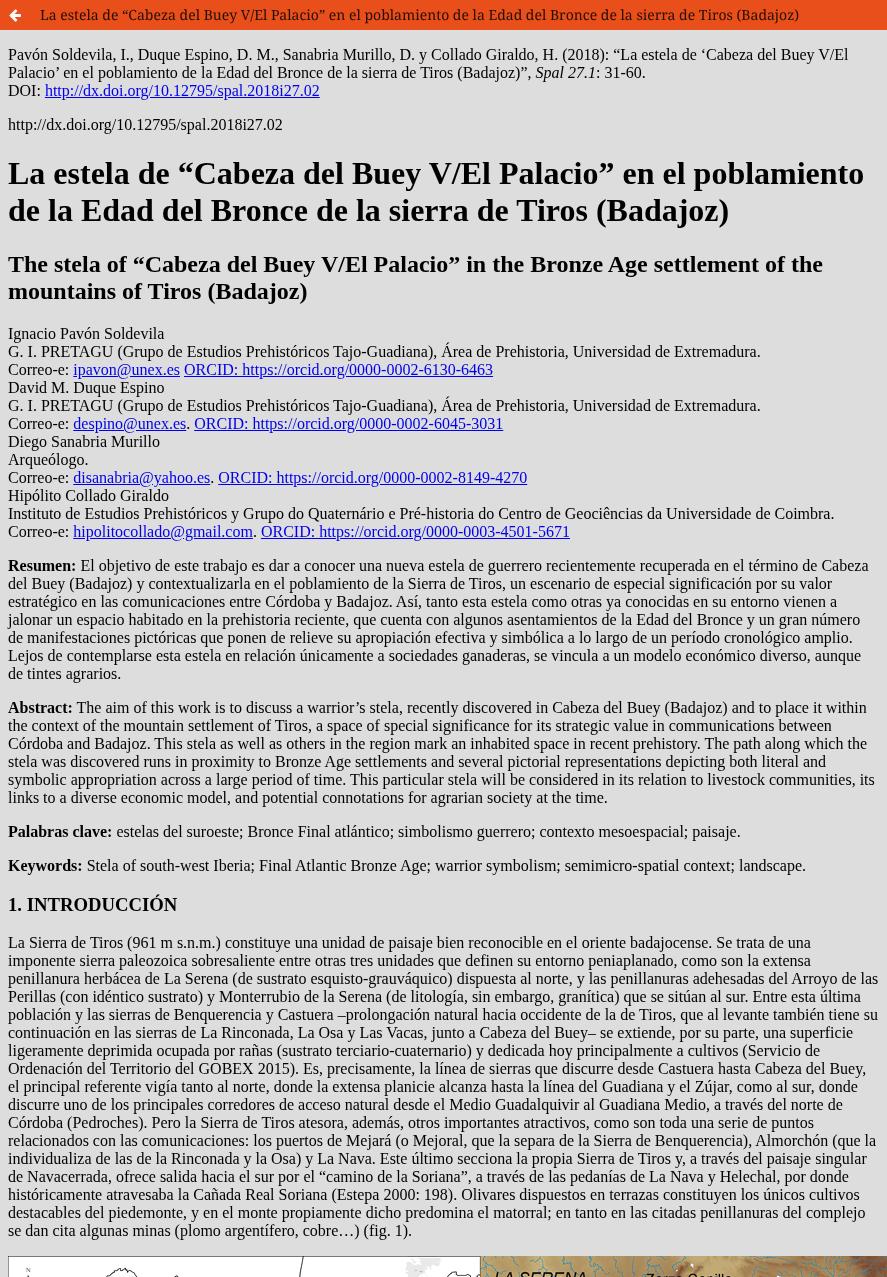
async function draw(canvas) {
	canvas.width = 887;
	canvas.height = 1277;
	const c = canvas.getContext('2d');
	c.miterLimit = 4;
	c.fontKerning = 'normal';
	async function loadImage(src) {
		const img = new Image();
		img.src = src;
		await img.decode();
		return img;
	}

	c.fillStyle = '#ddd';
	c.fillRect(0, 0, 887, 1277);
	c.fillStyle = '#e94f1b';
	c.fillRect(0, 0, 887, 30);
	c.drawImage(await loadImage('img1.png'), 9, 9, 12, 13);
	c.font = '14px Noto Serif';
	c.fillStyle = '#250d04';
	c.fillText('La estela de “Cabeza del Buey V/El Palacio” en el poblamiento de la Edad del Bronce de la sierra de Tiros (Badajoz)', 40, 20);
	c.drawImage(await loadImage('img2.png'), 7, 48, 880, 1229);
}

draw(document.querySelector('canvas'));
